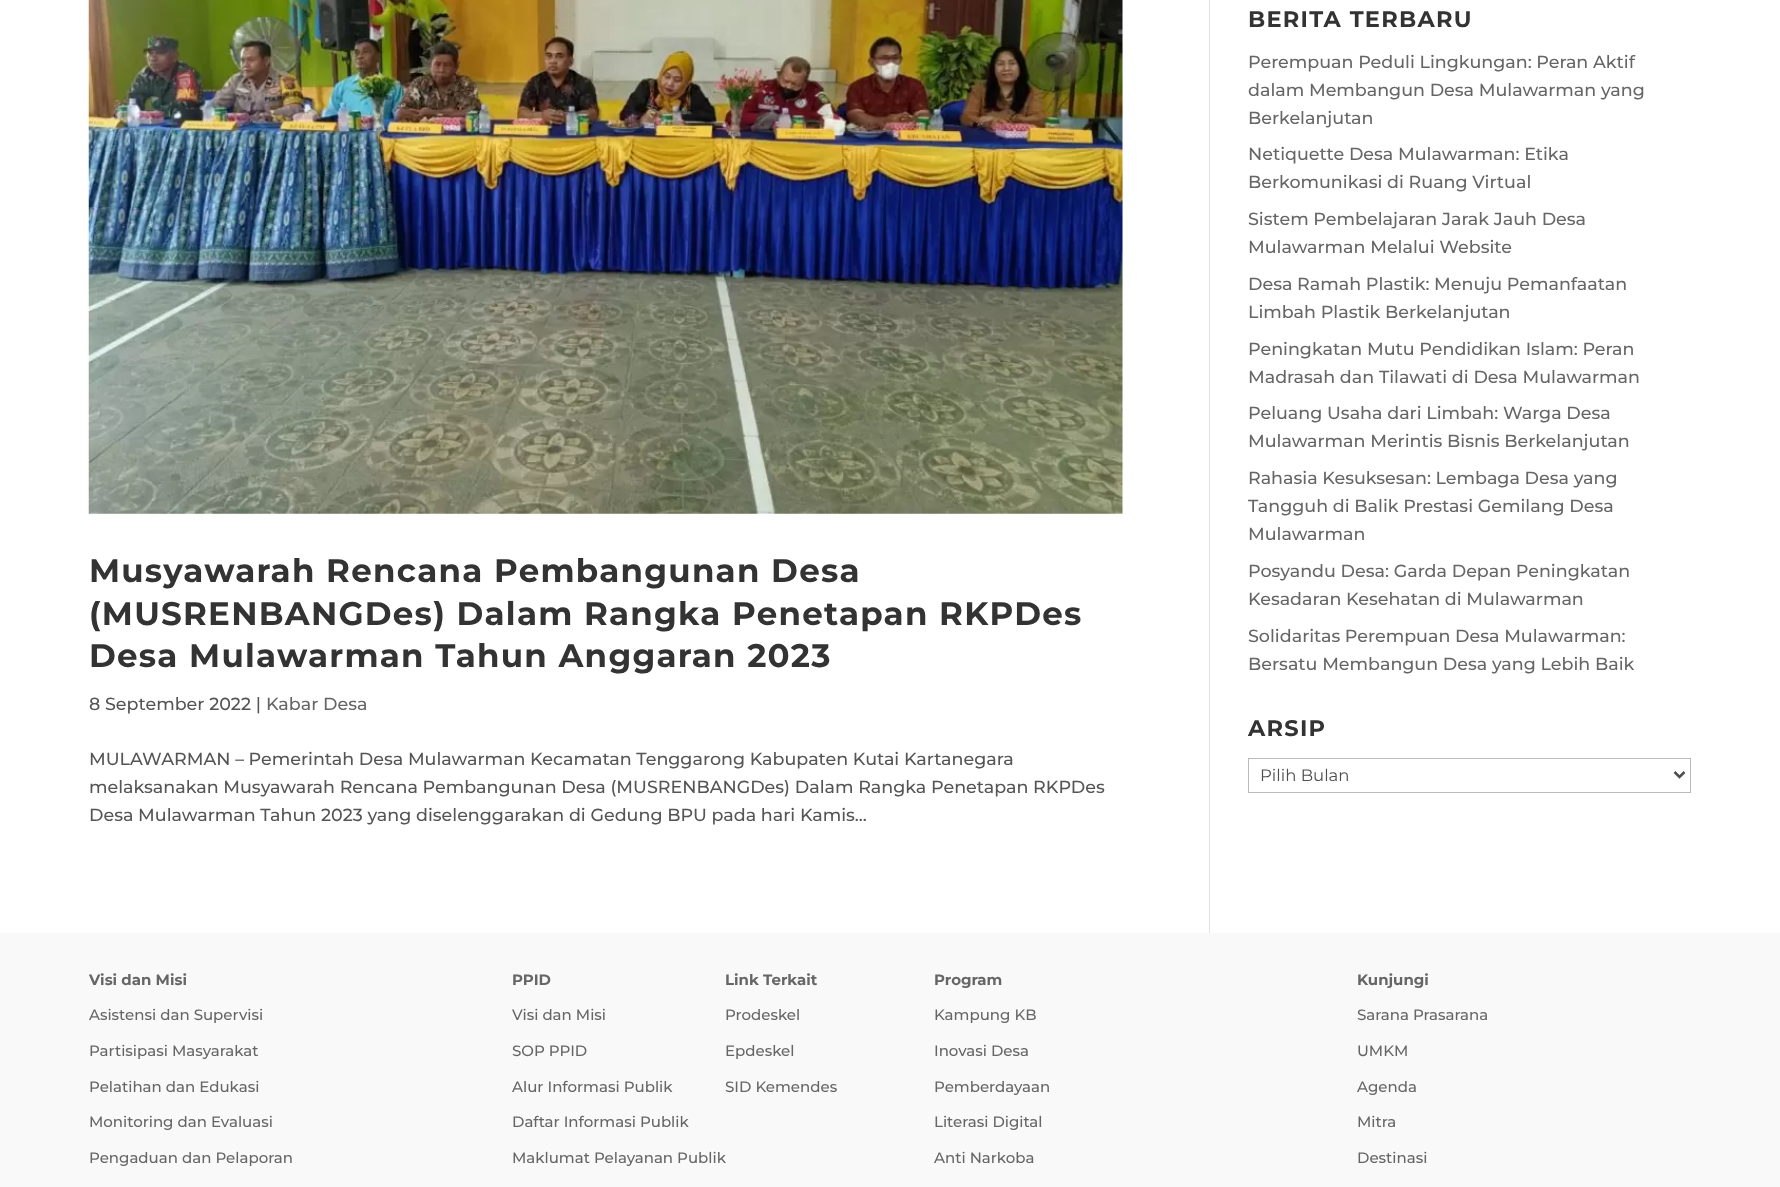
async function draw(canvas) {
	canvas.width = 1780;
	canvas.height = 1187;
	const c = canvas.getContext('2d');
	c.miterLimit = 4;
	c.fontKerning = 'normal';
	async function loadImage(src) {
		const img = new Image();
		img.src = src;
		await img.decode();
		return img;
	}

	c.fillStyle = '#fff';
	c.fillRect(0, 0, 1780, 1187);
	c.fillStyle = '#e2e2e2';
	c.fillRect(1209, 0, 1, 933);
	c.drawImage(await loadImage('img1.png'), 88, 0, 1035, 514);
	c.letterSpacing = '1.25px';
	c.font = 'bold 32.5px Montserrat';
	c.fillStyle = '#333';
	for (const [text, x, y] of [
		['Musyawarah Rencana Pembangunan Desa', 89, 582],
		['(MUSRENBANGDes) Dalam Rangka Penetapan RKPDes', 89, 625],
		['Desa Mulawarman Tahun Anggaran 2023', 89, 667],
	]) {
		c.fillText(text, x, y);
	}
	c.letterSpacing = '0px';
	c.font = '500 17.5px Montserrat';
	c.fillStyle = '#555';
	c.fillText('8 September 2022 |', 89, 710);
	c.fillStyle = '#666';
	c.fillText('Kabar Desa', 266, 710);
	c.fillStyle = '#555';
	for (const [text, x, y] of [
		['MULAWARMAN – Pemerintah Desa Mulawarman Kecamatan Tenggarong Kabupaten Kutai Kartanegara', 89, 765],
		['melaksanakan Musyawarah Rencana Pembangunan Desa (MUSRENBANGDes) Dalam Rangka Penetapan RKPDes', 89, 793],
		['Desa Mulawarman Tahun 2023 yang diselenggarakan di Gedung BPU pada hari Kamis...', 89, 821],
	]) {
		c.fillText(text, x, y);
	}
	c.letterSpacing = '1.25px';
	c.font = 'bold 22.5px Montserrat';
	c.fillStyle = '#333';
	c.fillText('BERITA TERBARU', 1248, 27);
	c.letterSpacing = '0px';
	c.font = '500 17.5px Montserrat';
	c.fillStyle = '#666';
	for (const [text, x, y] of [
		['Perempuan Peduli Lingkungan: Peran Aktif', 1248, 68],
		['dalam Membangun Desa Mulawarman yang', 1248, 96],
		['Berkelanjutan', 1248, 124],
		['Netiquette Desa Mulawarman: Etika', 1248, 160],
		['Berkomunikasi di Ruang Virtual', 1248, 188],
		['Sistem Pembelajaran Jarak Jauh Desa', 1248, 225],
		['Mulawarman Melalui Website', 1248, 253],
		['Desa Ramah Plastik: Menuju Pemanfaatan', 1248, 290],
		['Limbah Plastik Berkelanjutan', 1248, 318],
		['Peningkatan Mutu Pendidikan Islam: Peran', 1248, 355],
		['Madrasah dan Tilawati di Desa Mulawarman', 1248, 383],
		['Peluang Usaha dari Limbah: Warga Desa', 1248, 419],
		['Mulawarman Merintis Bisnis Berkelanjutan', 1248, 447],
		['Rahasia Kesuksesan: Lembaga Desa yang', 1248, 484],
		['Tangguh di Balik Prestasi Gemilang Desa', 1248, 512],
		['Mulawarman', 1248, 540],
		['Posyandu Desa: Garda Depan Peningkatan', 1248, 577],
		['Kesadaran Kesehatan di Mulawarman', 1248, 605],
		['Solidaritas Perempuan Desa Mulawarman:', 1248, 642],
		['Bersatu Membangun Desa yang Lebih Baik', 1248, 670],
	]) {
		c.fillText(text, x, y);
	}
	c.letterSpacing = '1.25px';
	c.font = 'bold 22.5px Montserrat';
	c.fillStyle = '#333';
	c.fillText('ARSIP', 1248, 736);
	c.strokeStyle = '#bbb';
	c.strokeRect(1248.5, 758.5, 442, 34);
	c.beginPath();
	c.moveTo(1674.5, 772);
	c.lineTo(1679.5, 777);
	c.lineTo(1684.5, 772);
	c.strokeStyle = '#4e4e4e';
	c.lineWidth = 2.5;
	c.stroke();
	c.letterSpacing = '0px';
	c.font = '16.5px Montserrat';
	c.fillStyle = '#4e4e4e';
	c.fillText('Pilih Bulan', 1260, 781);
	c.fillStyle = '#f9f9f9';
	c.fillRect(0, 933, 1780, 254);
	c.font = 'bold 15px Montserrat';
	c.fillStyle = '#666';
	c.fillText('Visi dan Misi', 89, 985);
	c.font = '500 15px Montserrat';
	for (const [text, x, y] of [
		['Asistensi dan Supervisi', 89, 1020],
		['Partisipasi Masyarakat', 89, 1056],
		['Pelatihan dan Edukasi', 89, 1092],
		['Monitoring dan Evaluasi', 89, 1127],
		['Pengaduan dan Pelaporan', 89, 1163],
	]) {
		c.fillText(text, x, y);
	}
	c.font = 'bold 15px Montserrat';
	c.fillText('PPID', 512, 985);
	c.font = '500 15px Montserrat';
	for (const [text, x, y] of [
		['Visi dan Misi', 512, 1020],
		['SOP PPID', 512, 1056],
		['Alur Informasi Publik', 512, 1092],
		['Daftar Informasi Publik', 512, 1127],
		['Maklumat Pelayanan Publik', 512, 1163],
	]) {
		c.fillText(text, x, y);
	}
	c.font = 'bold 15px Montserrat';
	c.fillText('Link Terkait', 725, 985);
	c.font = '500 15px Montserrat';
	for (const [text, x, y] of [
		['Prodeskel', 725, 1020],
		['Epdeskel', 725, 1056],
		['SID Kemendes', 725, 1092],
	]) {
		c.fillText(text, x, y);
	}
	c.font = 'bold 15px Montserrat';
	c.fillText('Program', 934, 985);
	c.font = '500 15px Montserrat';
	for (const [text, x, y] of [
		['Kampung KB', 934, 1020],
		['Inovasi Desa', 934, 1056],
		['Pemberdayaan', 934, 1092],
		['Literasi Digital', 934, 1127],
		['Anti Narkoba', 934, 1163],
	]) {
		c.fillText(text, x, y);
	}
	c.font = 'bold 15px Montserrat';
	c.fillText('Kunjungi', 1357, 985);
	c.font = '500 15px Montserrat';
	for (const [text, x, y] of [
		['Sarana Prasarana', 1357, 1020],
		['UMKM', 1357, 1056],
		['Agenda', 1357, 1092],
		['Mitra', 1357, 1127],
		['Destinasi', 1357, 1163],
	]) {
		c.fillText(text, x, y);
	}
}

draw(document.querySelector('canvas'));
